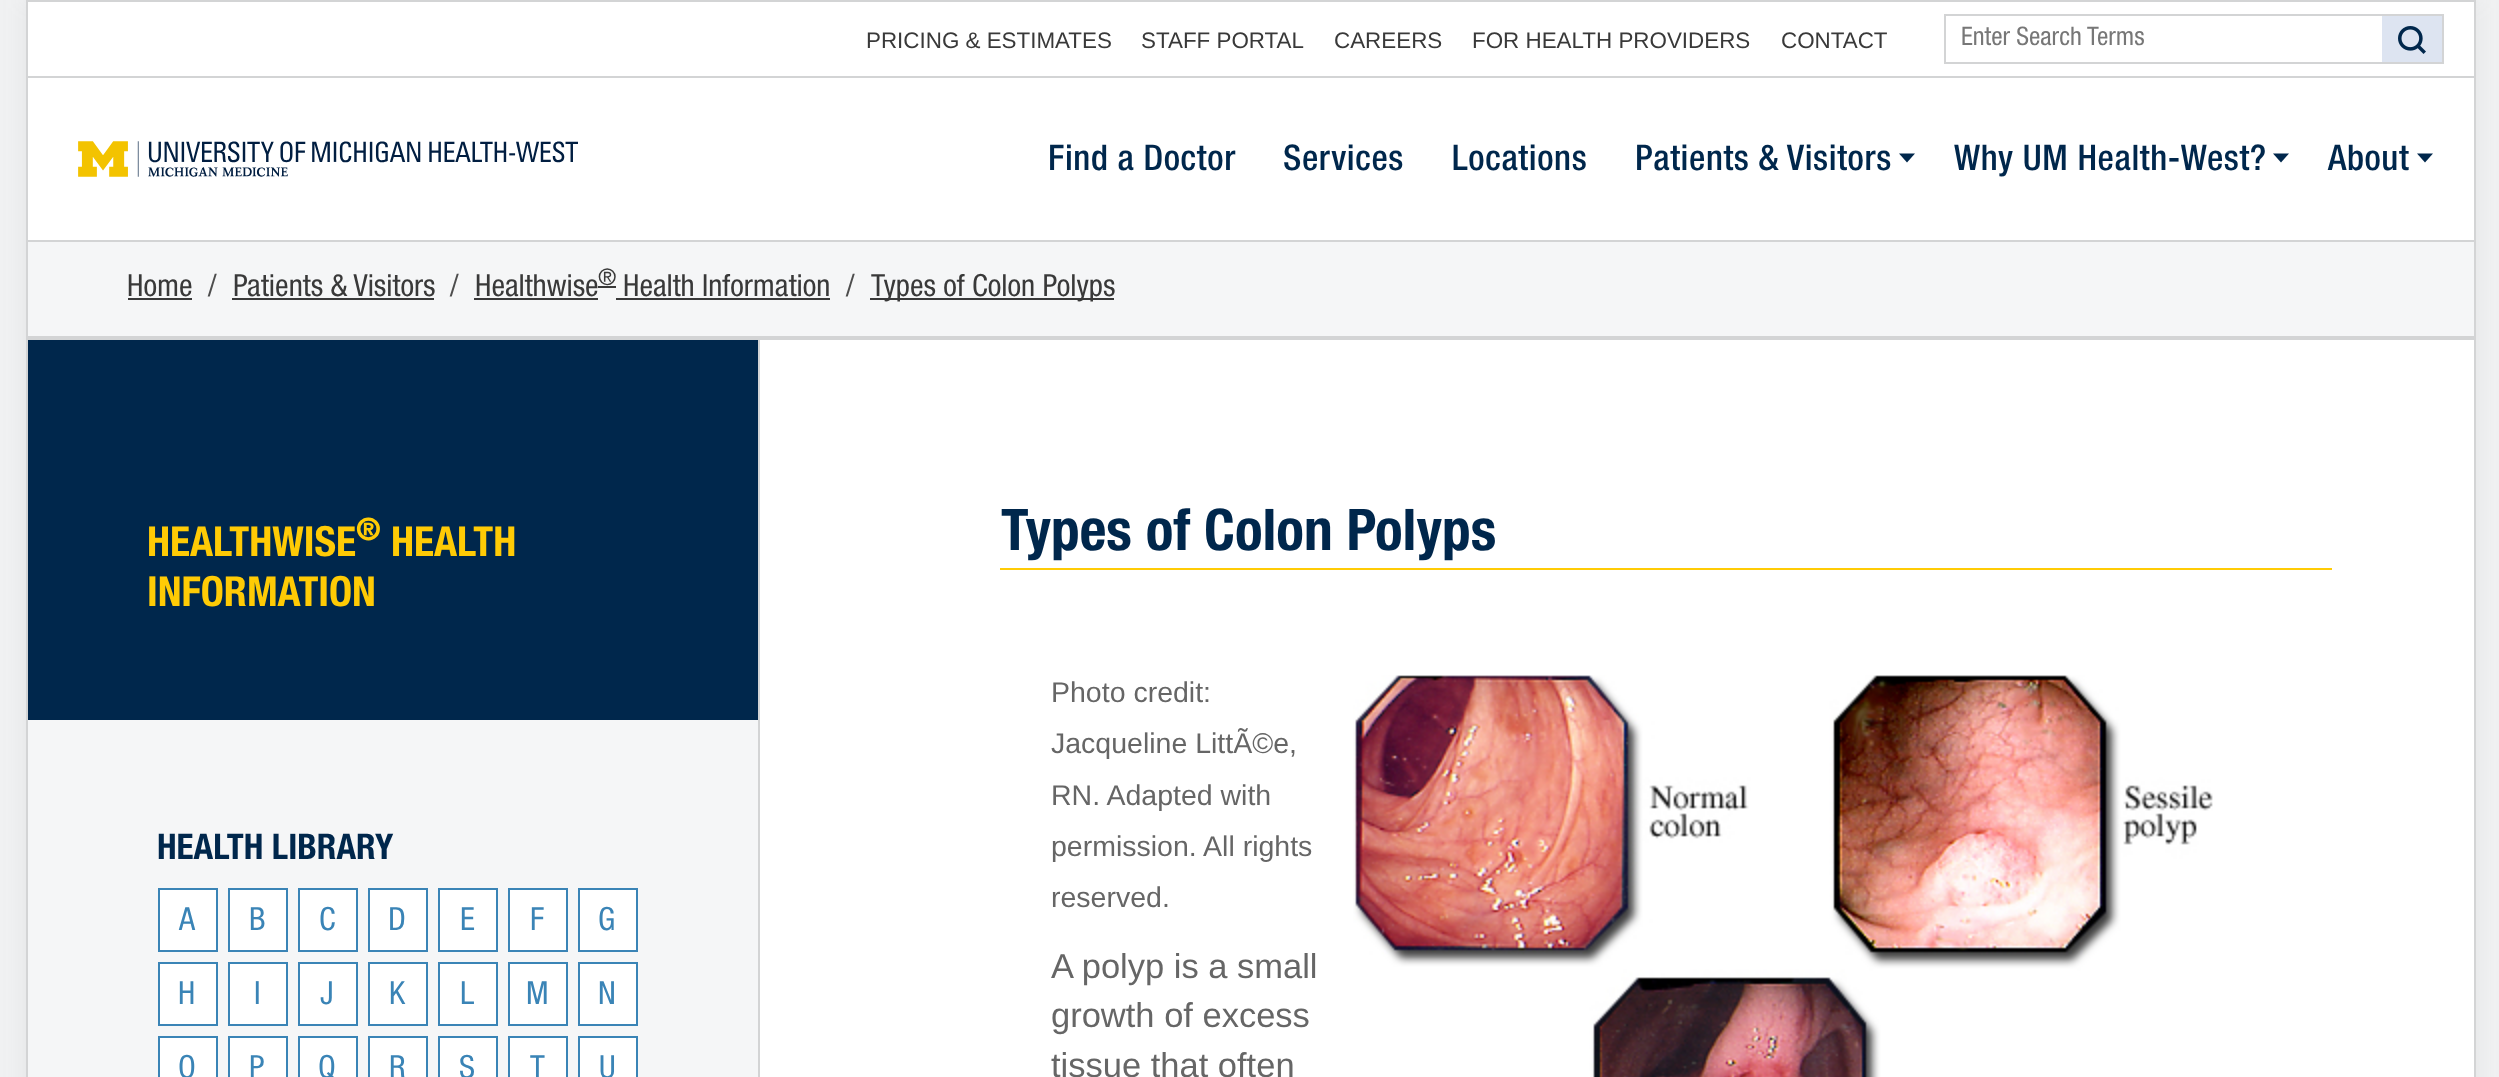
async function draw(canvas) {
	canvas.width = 2499;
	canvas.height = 1077;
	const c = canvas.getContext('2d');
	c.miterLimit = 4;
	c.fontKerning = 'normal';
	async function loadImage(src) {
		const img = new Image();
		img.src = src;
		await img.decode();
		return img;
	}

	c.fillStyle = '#f0f1f2';
	c.fillRect(0, 0, 2499, 1077);
	c.fillStyle = '#7d7d7d1a';
	c.filter = 'blur(12px)';
	c.beginPath();
	c.rect(26, 0, 2450, 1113);
	c.fill();
	c.filter = 'none';
	c.fillStyle = '#fff';
	c.beginPath();
	c.rect(27, 1, 2448, 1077);
	c.fill();
	c.strokeStyle = '#d3d4d5';
	c.lineWidth = 2;
	c.stroke();
	c.fillStyle = '#d3d4d5';
	c.fillRect(28, 76, 2446, 2);
	c.font = '22.4px Liberation Sans';
	c.fillStyle = '#393939';
	for (const [text, x, y] of [
		['PRICING & ESTIMATES', 866, 48],
		['STAFF PORTAL', 1141, 48],
		['CAREERS', 1334, 48],
		['FOR HEALTH PROVIDERS', 1472, 48],
		['CONTACT', 1781, 48],
	]) {
		c.fillText(text, x, y);
	}
	c.strokeRect(1945, 15, 498, 48);
	c.font = '25.5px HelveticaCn';
	c.fillStyle = '#777';
	c.fillText('Enter Search Terms', 1961, 45);
	c.fillStyle = '#dde4f1';
	c.fillRect(2382, 16, 60, 46);
	c.drawImage(await loadImage('img1.png'), 2398, 26, 28, 28);
	c.drawImage(await loadImage('img2.png'), 78, 141, 500, 36);
	c.letterSpacing = '0.6px';
	c.font = '35.25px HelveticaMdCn';
	c.fillStyle = '#00274c';
	for (const [text, x, y] of [
		['Find a Doctor', 1048, 170],
		['Services', 1283, 170],
		['Locations', 1452, 170],
	]) {
		c.fillText(text, x, y);
	}
	c.beginPath();
	c.moveTo(1899, 153.5);
	c.lineTo(1915, 153.5);
	c.lineTo(1907, 162.5);
	c.closePath();
	c.fill();
	c.fillText('Patients & Visitors', 1635, 170);
	c.beginPath();
	c.moveTo(2273, 153.5);
	c.lineTo(2289, 153.5);
	c.lineTo(2281, 162.5);
	c.closePath();
	c.fill();
	c.fillText('Why UM Health-West?', 1954, 170);
	c.beginPath();
	c.moveTo(2417, 153.5);
	c.lineTo(2433, 153.5);
	c.lineTo(2425, 162.5);
	c.closePath();
	c.fill();
	c.fillText('About', 2328, 170);
	for (const [x, y, w, h, color] of [
		[28, 242, 2446, 94, '#f5f6f7'],
		[28, 240, 2446, 2, '#d3d4d5'],
		[28, 336, 2446, 4, '#d3d4d5'],
	]) {
		c.fillStyle = color;
		c.fillRect(x, y, w, h);
	}
	c.letterSpacing = '0px';
	c.font = '30.5px HelveticaCn';
	c.fillStyle = '#393939';
	c.fillText('Home', 127, 296);
	c.fillRect(128, 298, 64, 2);
	c.fillStyle = '#4d4d4d';
	c.fillText('/', 208, 296);
	c.fillStyle = '#393939';
	c.fillText('Patients & Visitors', 233, 296);
	c.fillRect(232, 298, 202, 2);
	c.fillStyle = '#4d4d4d';
	c.fillText('/', 450, 296);
	c.fillStyle = '#393939';
	c.fillText('Healthwise', 475, 296);
	c.fillRect(474, 298, 124, 2);
	c.fillRect(598, 286, 18, 2);
	c.font = '23px HelveticaCn';
	c.fillText('®', 598, 285);
	c.font = '30.5px HelveticaCn';
	c.fillText('Health Information', 623, 296);
	c.fillRect(616, 298, 214, 2);
	c.fillStyle = '#4d4d4d';
	c.fillText('/', 846, 296);
	c.fillStyle = '#393939';
	c.fillRect(870, 298, 244, 2);
	c.fillText('Types of Colon Polyps', 871, 296);
	for (const [x, y, w, h, color] of [
		[28, 720, 730, 357, '#f5f6f7'],
		[758, 340, 2, 737, '#d3d4d5'],
		[28, 340, 730, 380, '#00274c'],
	]) {
		c.fillStyle = color;
		c.fillRect(x, y, w, h);
	}
	c.font = '41.5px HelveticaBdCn';
	c.fillStyle = '#ffcb05';
	c.fillText('HEALTHWISE', 147, 556);
	c.font = '31px HelveticaBdCn';
	c.fillText('®', 356, 540);
	c.font = '41.5px HelveticaBdCn';
	c.fillText('HEALTH', 391, 556);
	c.fillText('INFORMATION', 147, 606);
	c.font = '35.25px HelveticaBdCn';
	c.fillStyle = '#00274c';
	c.fillText('HEALTH LIBRARY', 157, 859);
	c.fillStyle = '#fff';
	c.beginPath();
	c.rect(159, 889, 58, 62);
	c.fill();
	c.strokeStyle = '#3a84b6';
	c.stroke();
	c.font = '32px HelveticaCn';
	c.fillStyle = '#3a84b6';
	c.fillText('A', 179, 930);
	c.fillStyle = '#fff';
	c.beginPath();
	c.rect(229, 889, 58, 62);
	c.fill();
	c.stroke();
	c.fillStyle = '#3a84b6';
	c.fillText('B', 249, 930);
	c.fillStyle = '#fff';
	c.beginPath();
	c.rect(299, 889, 58, 62);
	c.fill();
	c.stroke();
	c.fillStyle = '#3a84b6';
	c.fillText('C', 319, 930);
	c.fillStyle = '#fff';
	c.beginPath();
	c.rect(369, 889, 58, 62);
	c.fill();
	c.stroke();
	c.fillStyle = '#3a84b6';
	c.fillText('D', 388, 930);
	c.fillStyle = '#fff';
	c.beginPath();
	c.rect(439, 889, 58, 62);
	c.fill();
	c.stroke();
	c.fillStyle = '#3a84b6';
	c.fillText('E', 460, 930);
	c.fillStyle = '#fff';
	c.beginPath();
	c.rect(509, 889, 58, 62);
	c.fill();
	c.stroke();
	c.fillStyle = '#3a84b6';
	c.fillText('F', 530, 930);
	c.fillStyle = '#fff';
	c.beginPath();
	c.rect(579, 889, 58, 62);
	c.fill();
	c.stroke();
	c.fillStyle = '#3a84b6';
	c.fillText('G', 598, 930);
	c.fillStyle = '#fff';
	c.beginPath();
	c.rect(159, 963, 58, 62);
	c.fill();
	c.stroke();
	c.fillStyle = '#3a84b6';
	c.fillText('H', 178, 1004);
	c.fillStyle = '#fff';
	c.beginPath();
	c.rect(229, 963, 58, 62);
	c.fill();
	c.stroke();
	c.fillStyle = '#3a84b6';
	c.fillText('I', 254, 1004);
	c.fillStyle = '#fff';
	c.beginPath();
	c.rect(299, 963, 58, 62);
	c.fill();
	c.stroke();
	c.fillStyle = '#3a84b6';
	c.fillText('J', 320, 1004);
	c.fillStyle = '#fff';
	c.beginPath();
	c.rect(369, 963, 58, 62);
	c.fill();
	c.stroke();
	c.fillStyle = '#3a84b6';
	c.fillText('K', 389, 1004);
	c.fillStyle = '#fff';
	c.beginPath();
	c.rect(439, 963, 58, 62);
	c.fill();
	c.stroke();
	c.fillStyle = '#3a84b6';
	c.fillText('L', 460, 1004);
	c.fillStyle = '#fff';
	c.beginPath();
	c.rect(509, 963, 58, 62);
	c.fill();
	c.stroke();
	c.fillStyle = '#3a84b6';
	c.fillText('M', 526, 1004);
	c.fillStyle = '#fff';
	c.beginPath();
	c.rect(579, 963, 58, 62);
	c.fill();
	c.stroke();
	c.fillStyle = '#3a84b6';
	c.fillText('N', 598, 1004);
	c.fillStyle = '#fff';
	c.beginPath();
	c.rect(159, 1037, 58, 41);
	c.fill();
	c.stroke();
	c.fillStyle = '#3a84b6';
	c.fillText('O', 178, 1078);
	c.fillStyle = '#fff';
	c.beginPath();
	c.rect(229, 1037, 58, 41);
	c.fill();
	c.stroke();
	c.fillStyle = '#3a84b6';
	c.fillText('P', 249, 1078);
	c.fillStyle = '#fff';
	c.beginPath();
	c.rect(299, 1037, 58, 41);
	c.fill();
	c.stroke();
	c.fillStyle = '#3a84b6';
	c.fillText('Q', 318, 1078);
	c.fillStyle = '#fff';
	c.beginPath();
	c.rect(369, 1037, 58, 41);
	c.fill();
	c.stroke();
	c.fillStyle = '#3a84b6';
	c.fillText('R', 389, 1078);
	c.fillStyle = '#fff';
	c.beginPath();
	c.rect(439, 1037, 58, 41);
	c.fill();
	c.stroke();
	c.fillStyle = '#3a84b6';
	c.fillText('S', 459, 1078);
	c.fillStyle = '#fff';
	c.beginPath();
	c.rect(509, 1037, 58, 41);
	c.fill();
	c.stroke();
	c.fillStyle = '#3a84b6';
	c.fillText('T', 530, 1078);
	c.fillStyle = '#fff';
	c.beginPath();
	c.rect(579, 1037, 58, 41);
	c.fill();
	c.stroke();
	c.fillStyle = '#3a84b6';
	c.fillText('U', 599, 1078);
	c.fillStyle = '#ffcb05';
	c.fillRect(1000, 568, 1332, 2);
	c.font = '57.5px HelveticaBdCn';
	c.fillStyle = '#00274c';
	c.fillText('Types of Colon Polyps', 1001, 550);
	c.font = '28.5px Liberation Sans';
	c.fillStyle = '#666';
	for (const [text, x, y] of [
		['Photo credit:', 1051, 702],
		['Jacqueline LittÃ©e,', 1051, 753],
		['RN. Adapted with', 1051, 805],
		['permission. All rights', 1051, 856],
		['reserved.', 1051, 907],
	]) {
		c.fillText(text, x, y);
	}
	c.drawImage(await loadImage('img3.png'), 1353, 675, 860, 402);
	c.font = '34.5px Liberation Sans';
	for (const [text, x, y] of [
		['A polyp is a small', 1051, 978],
		['growth of excess', 1051, 1027],
		['tissue that often', 1051, 1077],
	]) {
		c.fillText(text, x, y);
	}
}

draw(document.querySelector('canvas'));
